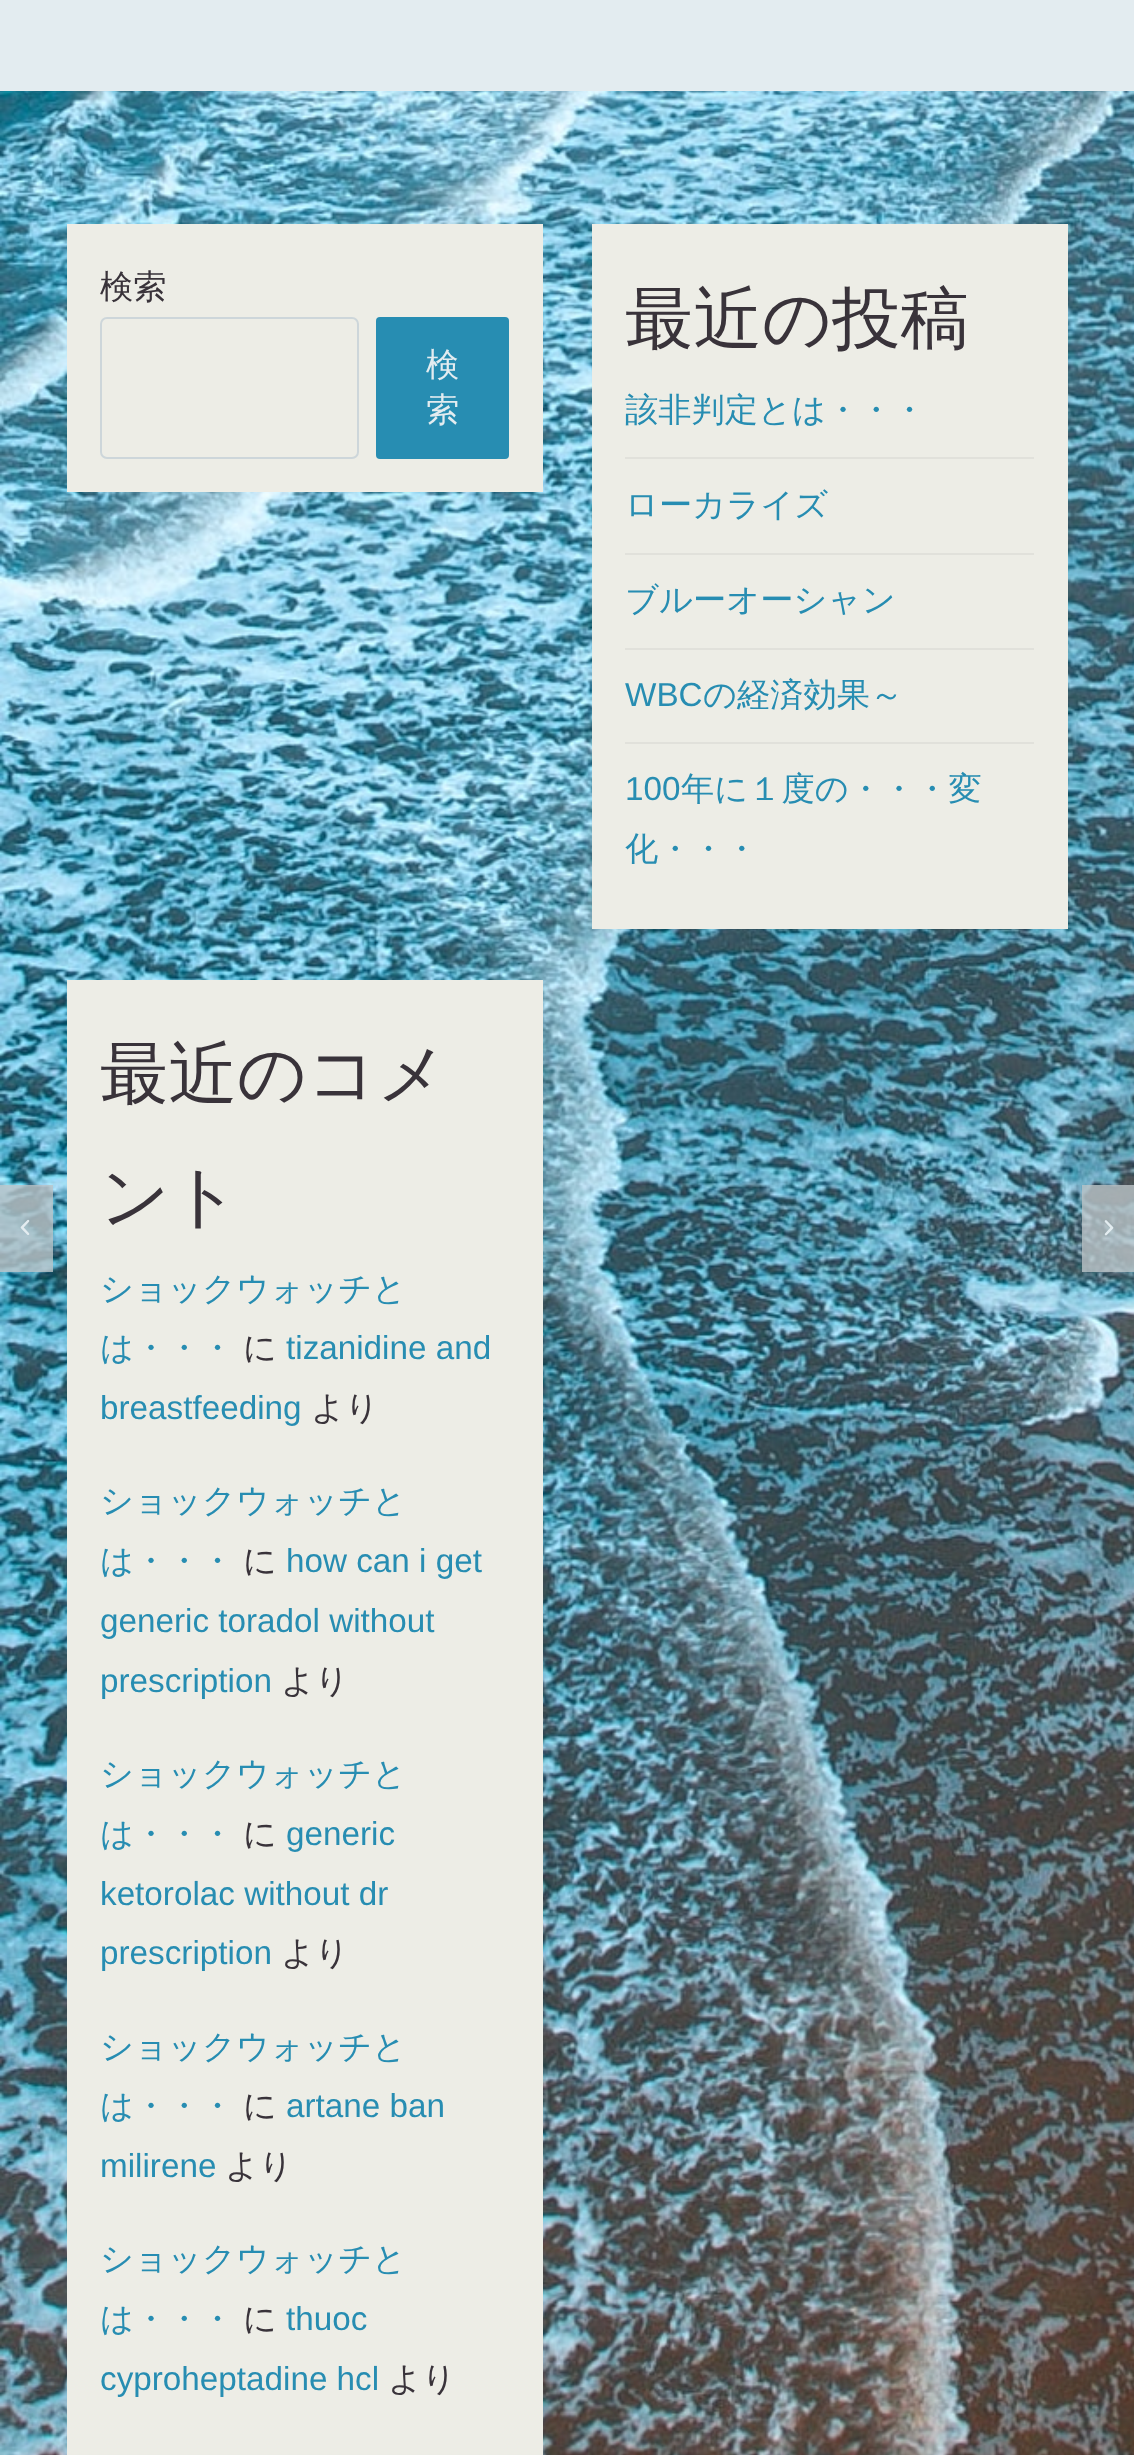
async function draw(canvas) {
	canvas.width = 1134;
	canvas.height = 2455;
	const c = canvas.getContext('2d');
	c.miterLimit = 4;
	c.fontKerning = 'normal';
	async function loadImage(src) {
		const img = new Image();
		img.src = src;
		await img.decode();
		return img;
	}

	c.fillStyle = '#fff';
	c.fillRect(0, 0, 1134, 2455);
	c.drawImage(await loadImage('img1.png'), 0, 91, 1134, 2364);
	c.fillStyle = '#e3ecf0';
	c.fillRect(0, 0, 1134, 91);
	c.fillStyle = '#edede6';
	c.fillRect(67, 224, 476, 268);
	c.font = '500 33.25px WenQuanYi Zen Hei';
	c.fillStyle = '#39333a';
	c.fillText('検索', 100, 298);
	c.beginPath();
	c.roundRect(101, 318, 257, 140, 6);
	c.strokeStyle = '#cdd6da';
	c.lineWidth = 2;
	c.stroke();
	c.fillStyle = '#278db2';
	c.beginPath();
	c.roundRect(376, 317, 133, 142, 4);
	c.fill();
	c.fillStyle = '#e3ecf0';
	c.fillText('検', 426, 376);
	c.fillText('索', 426, 421);
	c.fillStyle = '#edede6';
	c.fillRect(592, 224, 476, 705);
	c.font = '500 68.5px WenQuanYi Zen Hei';
	c.fillStyle = '#39333a';
	c.fillText('最近の投稿', 625, 342);
	c.fillStyle = '#e1e1db';
	c.fillRect(625, 457, 409, 2);
	c.font = '500 33.25px WenQuanYi Zen Hei';
	c.fillStyle = '#278db2';
	c.fillText('該非判定とは・・・', 625, 421);
	c.fillStyle = '#e1e1db';
	c.fillRect(625, 553, 409, 2);
	c.fillStyle = '#278db2';
	c.fillText('ローカライズ', 625, 516);
	c.fillStyle = '#e1e1db';
	c.fillRect(625, 648, 409, 2);
	c.fillStyle = '#278db2';
	c.fillText('ブルーオーシャン', 625, 611);
	c.fillStyle = '#e1e1db';
	c.fillRect(625, 742, 409, 2);
	c.font = '33.25px Liberation Sans';
	c.fillStyle = '#278db2';
	c.fillText('WBC', 625, 706);
	c.font = '500 33.25px WenQuanYi Zen Hei';
	c.fillText('の経済効果～', 703, 706);
	c.font = '33.25px Liberation Sans';
	c.fillText('100', 625, 800);
	c.font = '500 33.25px WenQuanYi Zen Hei';
	c.fillText('年に１度の・・・変', 681, 800);
	c.fillText('化・・・', 625, 860);
	c.fillStyle = '#edede6';
	c.fillRect(67, 980, 476, 1475);
	c.font = '500 68.5px WenQuanYi Zen Hei';
	c.fillStyle = '#39333a';
	c.fillText('最近のコメ', 100, 1097);
	c.fillText('ント', 100, 1220);
	c.font = '500 33.25px WenQuanYi Zen Hei';
	c.fillStyle = '#278db2';
	c.fillText('ショックウォッチと', 100, 1300);
	c.fillText('は・・・', 100, 1359);
	c.fillStyle = '#39333a';
	c.fillText('に', 243, 1359);
	c.font = '33.25px Liberation Sans';
	c.fillStyle = '#278db2';
	c.fillText('tizanidine and', 286, 1359);
	c.fillText('breastfeeding', 100, 1419);
	c.font = '500 33.25px WenQuanYi Zen Hei';
	c.fillStyle = '#39333a';
	c.fillText('より', 311, 1419);
	c.fillStyle = '#278db2';
	c.fillText('ショックウォッチと', 100, 1512);
	c.fillText('は・・・', 100, 1572);
	c.fillStyle = '#39333a';
	c.fillText('に', 243, 1572);
	c.font = '33.25px Liberation Sans';
	c.fillStyle = '#278db2';
	for (const [text, x, y] of [
		['how can i get', 286, 1572],
		['generic toradol without', 100, 1632],
		['prescription', 100, 1692],
	]) {
		c.fillText(text, x, y);
	}
	c.font = '500 33.25px WenQuanYi Zen Hei';
	c.fillStyle = '#39333a';
	c.fillText('より', 281, 1692);
	c.fillStyle = '#278db2';
	c.fillText('ショックウォッチと', 100, 1785);
	c.fillText('は・・・', 100, 1845);
	c.fillStyle = '#39333a';
	c.fillText('に', 243, 1845);
	c.font = '33.25px Liberation Sans';
	c.fillStyle = '#278db2';
	for (const [text, x, y] of [
		['generic', 286, 1845],
		['ketorolac without dr', 100, 1905],
		['prescription', 100, 1964],
	]) {
		c.fillText(text, x, y);
	}
	c.font = '500 33.25px WenQuanYi Zen Hei';
	c.fillStyle = '#39333a';
	c.fillText('より', 281, 1964);
	c.fillStyle = '#278db2';
	c.fillText('ショックウォッチと', 100, 2058);
	c.fillText('は・・・', 100, 2117);
	c.fillStyle = '#39333a';
	c.fillText('に', 243, 2117);
	c.font = '33.25px Liberation Sans';
	c.fillStyle = '#278db2';
	c.fillText('artane ban', 286, 2117);
	c.fillText('milirene', 100, 2177);
	c.font = '500 33.25px WenQuanYi Zen Hei';
	c.fillStyle = '#39333a';
	c.fillText('より', 225, 2177);
	c.fillStyle = '#278db2';
	c.fillText('ショックウォッチと', 100, 2270);
	c.fillText('は・・・', 100, 2330);
	c.fillStyle = '#39333a';
	c.fillText('に', 243, 2330);
	c.font = '33.25px Liberation Sans';
	c.fillStyle = '#278db2';
	c.fillText('thuoc', 286, 2330);
	c.fillText('cyproheptadine hcl', 100, 2390);
	c.font = '500 33.25px WenQuanYi Zen Hei';
	c.fillStyle = '#39333a';
	c.fillText('より', 388, 2390);
	c.fillStyle = '#bbc4c8cc';
	c.fillRect(0, 1185, 53, 87);
	c.drawImage(await loadImage('img2.png'), 20, 1219, 10, 16);
	c.fillRect(1082, 1185, 52, 87);
	c.drawImage(await loadImage('img3.png'), 1104, 1220, 10, 16);
}

draw(document.querySelector('canvas'));
